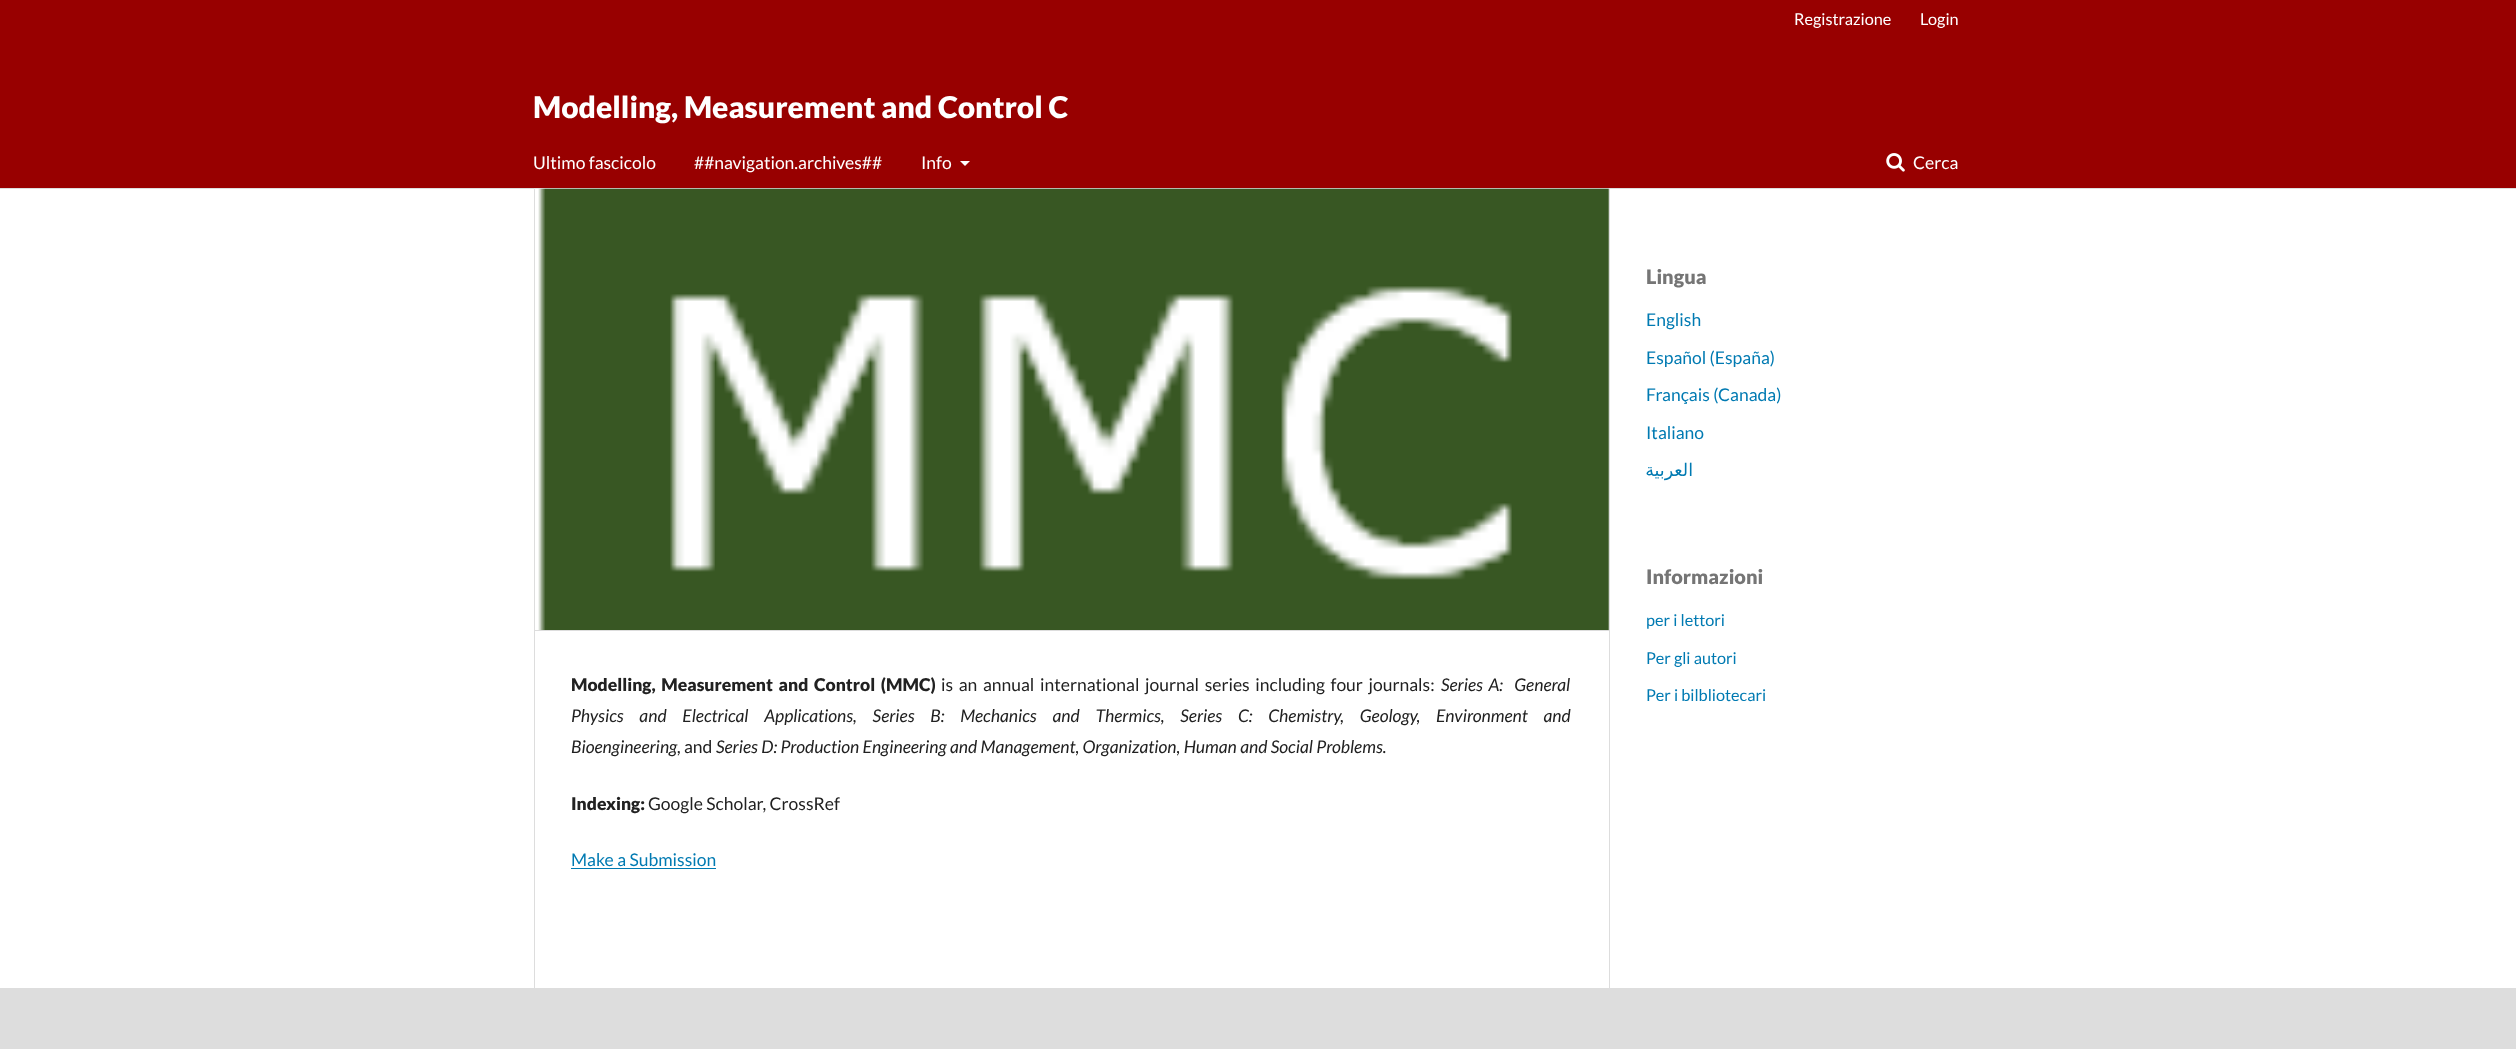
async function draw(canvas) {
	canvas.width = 2516;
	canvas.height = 1049;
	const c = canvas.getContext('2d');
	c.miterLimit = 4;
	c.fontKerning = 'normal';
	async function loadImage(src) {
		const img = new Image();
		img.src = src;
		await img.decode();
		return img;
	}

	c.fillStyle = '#fff';
	c.fillRect(0, 0, 2516, 1049);
	c.fillStyle = '#980000';
	c.fillRect(0, 0, 2516, 188);
	c.fillStyle = '#ddd';
	c.fillRect(0, 188, 2516, 1);
	c.font = '16.25px Lato';
	c.fillStyle = '#fff';
	c.fillText('Registrazione', 1794, 25);
	c.fillText('Login', 1920, 25);
	c.font = '900 30px Lato';
	c.fillText('Modelling, Measurement and Control C', 533, 118);
	c.font = '17.5px Lato';
	for (const [text, x, y] of [
		['Ultimo fascicolo', 533, 169],
		['##navigation.archives##', 694, 169],
		['Info', 921, 169],
	]) {
		c.fillText(text, x, y);
	}
	c.beginPath();
	c.moveTo(960, 161);
	c.lineTo(970, 161);
	c.lineTo(965, 166);
	c.closePath();
	c.fill();
	c.drawImage(await loadImage('img1.png'), 1886, 153, 19, 19);
	c.fillText('Cerca', 1913, 169);
	c.font = '900 20px Lato';
	c.fillStyle = '#757575';
	c.fillText('Lingua', 1646, 284);
	c.font = '17.5px Lato';
	c.fillStyle = '#007ab2';
	for (const [text, x, y] of [
		['English', 1646, 326],
		['Español (España)', 1646, 364],
		['Français (Canada)', 1646, 401],
		['Italiano', 1646, 439],
	]) {
		c.fillText(text, x, y);
	}
	c.direction = 'rtl';
	c.font = '17.5px DejaVu Sans';
	c.fillText('العربية', 1693, 476);
	c.direction = 'ltr';
	c.font = '900 20px Lato';
	c.fillStyle = '#757575';
	c.fillText('Informazioni', 1646, 584);
	c.font = '16.25px Lato';
	c.fillStyle = '#007ab2';
	for (const [text, x, y] of [
		['per i lettori', 1646, 626],
		['Per gli autori', 1646, 664],
		['Per i bilbliotecari', 1646, 701],
	]) {
		c.fillText(text, x, y);
	}
	c.drawImage(await loadImage('img2.png'), 534, 188, 1075, 442);
	c.fillStyle = '#ddd';
	c.fillRect(534, 630, 1075, 1);
	c.fillRect(534, 189, 1, 799);
	c.wordSpacing = '2.25px';
	c.font = '900 17.5px Lato';
	c.fillStyle = '#212121';
	c.fillText('Modelling, Measurement and Control (MMC)', 571, 691);
	c.font = '17.5px Lato';
	c.fillText('is an annual international journal series including four journals:', 941, 691);
	c.font = 'italic 17.5px Lato';
	c.fillText('Series A:  General', 1441, 691);
	c.wordSpacing = '12.4px';
	c.fillText('Physics and Electrical Applications, Series B: Mechanics and Thermics, Series C: Chemistry, Geology, Environment and', 571, 722);
	c.wordSpacing = '0px';
	c.fillText('Bioengineering,', 571, 753);
	c.font = '17.5px Lato';
	c.fillText('and', 684, 753);
	c.font = 'italic 17.5px Lato';
	c.fillText('Series D: Production Engineering and Management, Organization, Human and Social Problems.', 716, 753);
	c.font = '900 17.5px Lato';
	c.fillText('Indexing:', 571, 810);
	c.font = '17.5px Lato';
	c.fillText('Google Scholar, CrossRef', 648, 810);
	c.fillStyle = '#007ab2';
	c.fillText('Make a Submission', 571, 866);
	for (const [x, y, w, h, color] of [
		[571, 868, 145, 1, '#007ab2'],
		[1609, 189, 1, 799, '#ddd'],
		[0, 988, 2516, 61, '#ddd'],
	]) {
		c.fillStyle = color;
		c.fillRect(x, y, w, h);
	}
}

draw(document.querySelector('canvas'));
